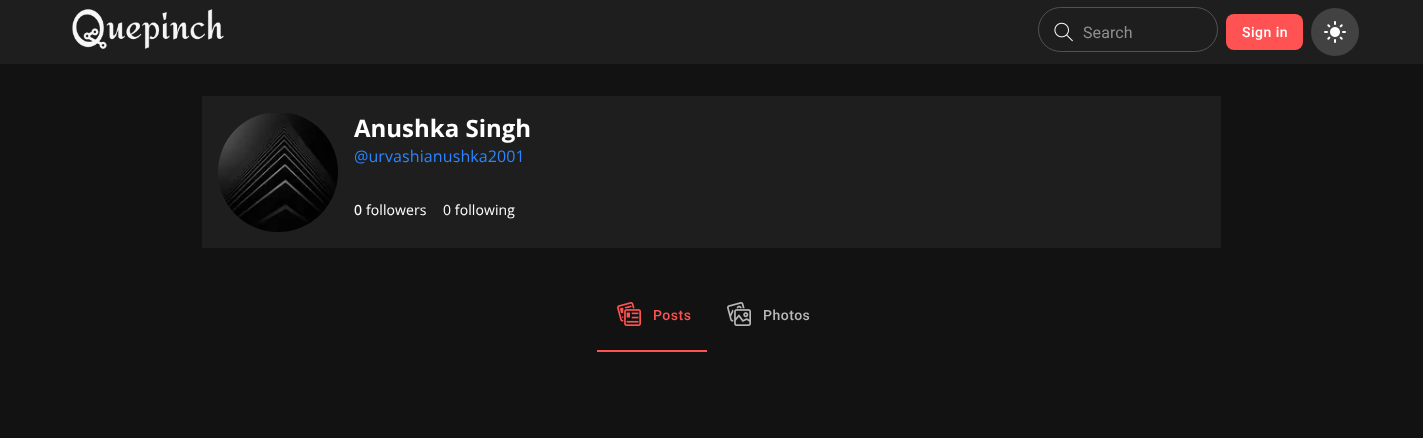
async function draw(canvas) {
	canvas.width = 1423;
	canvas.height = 438;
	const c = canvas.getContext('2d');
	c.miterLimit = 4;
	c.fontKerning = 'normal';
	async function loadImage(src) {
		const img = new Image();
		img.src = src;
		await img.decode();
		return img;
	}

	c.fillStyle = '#121212';
	c.fillRect(0, 0, 1423, 438);
	c.fillStyle = '#1e1e1e';
	c.fillRect(0, 0, 1423, 64);
	c.drawImage(await loadImage('img1.png'), 72, 9, 152, 40);
	c.drawImage(await loadImage('img2.png'), 1054, 22, 19, 20);
	c.beginPath();
	c.roundRect(1038.5, 7.5, 179, 44, 22);
	c.strokeStyle = '#525252';
	c.stroke();
	c.letterSpacing = '0.1px';
	c.font = '16px Roboto';
	c.fillStyle = '#8f8f8f';
	c.fillText('Search', 1083, 38);
	c.fillStyle = '#ff5252';
	c.beginPath();
	c.roundRect(1226, 14, 77, 36, 8);
	c.fill();
	c.letterSpacing = '0.5px';
	c.font = '500 14px Roboto';
	c.fillStyle = '#fff';
	c.fillText('Sign in', 1242, 37);
	c.fillStyle = '#424242';
	c.beginPath();
	c.arc(1335, 32, 24, 0, 2 * Math.PI);
	c.fill();
	c.drawImage(await loadImage('img3.png'), 1324, 21, 22, 22);
	c.fillStyle = '#ffffff0d';
	c.fillRect(202, 96, 1019, 152);
	c.drawImage(await loadImage('img4.png'), 218, 113, 120, 119);
	c.letterSpacing = '0px';
	c.font = 'bold 24px Open Sans';
	c.fillStyle = '#fff';
	c.fillText('Anushka Singh', 354, 137);
	c.letterSpacing = '0.1px';
	c.font = '16px Open Sans';
	c.fillStyle = '#2a85ff';
	c.fillText('@urvashianushka2001', 354, 162);
	c.font = '500 14px Open Sans';
	c.fillStyle = '#fff';
	c.fillText('0', 354, 215);
	c.font = '14px Open Sans';
	c.fillText('followers', 366, 215);
	c.fillText('0 following', 443, 215);
	c.drawImage(await loadImage('img5.png'), 617, 302, 24, 24);
	c.letterSpacing = '0.5px';
	c.font = '500 14px Roboto';
	c.fillStyle = '#ff5252';
	c.fillText('Posts', 653, 320);
	c.drawImage(await loadImage('img6.png'), 727, 302, 24, 24);
	c.fillStyle = '#b8b8b8';
	c.fillText('Photos', 763, 320);
	c.fillStyle = '#ff5252';
	c.fillRect(597, 350, 110, 2);
}

draw(document.querySelector('canvas'));
